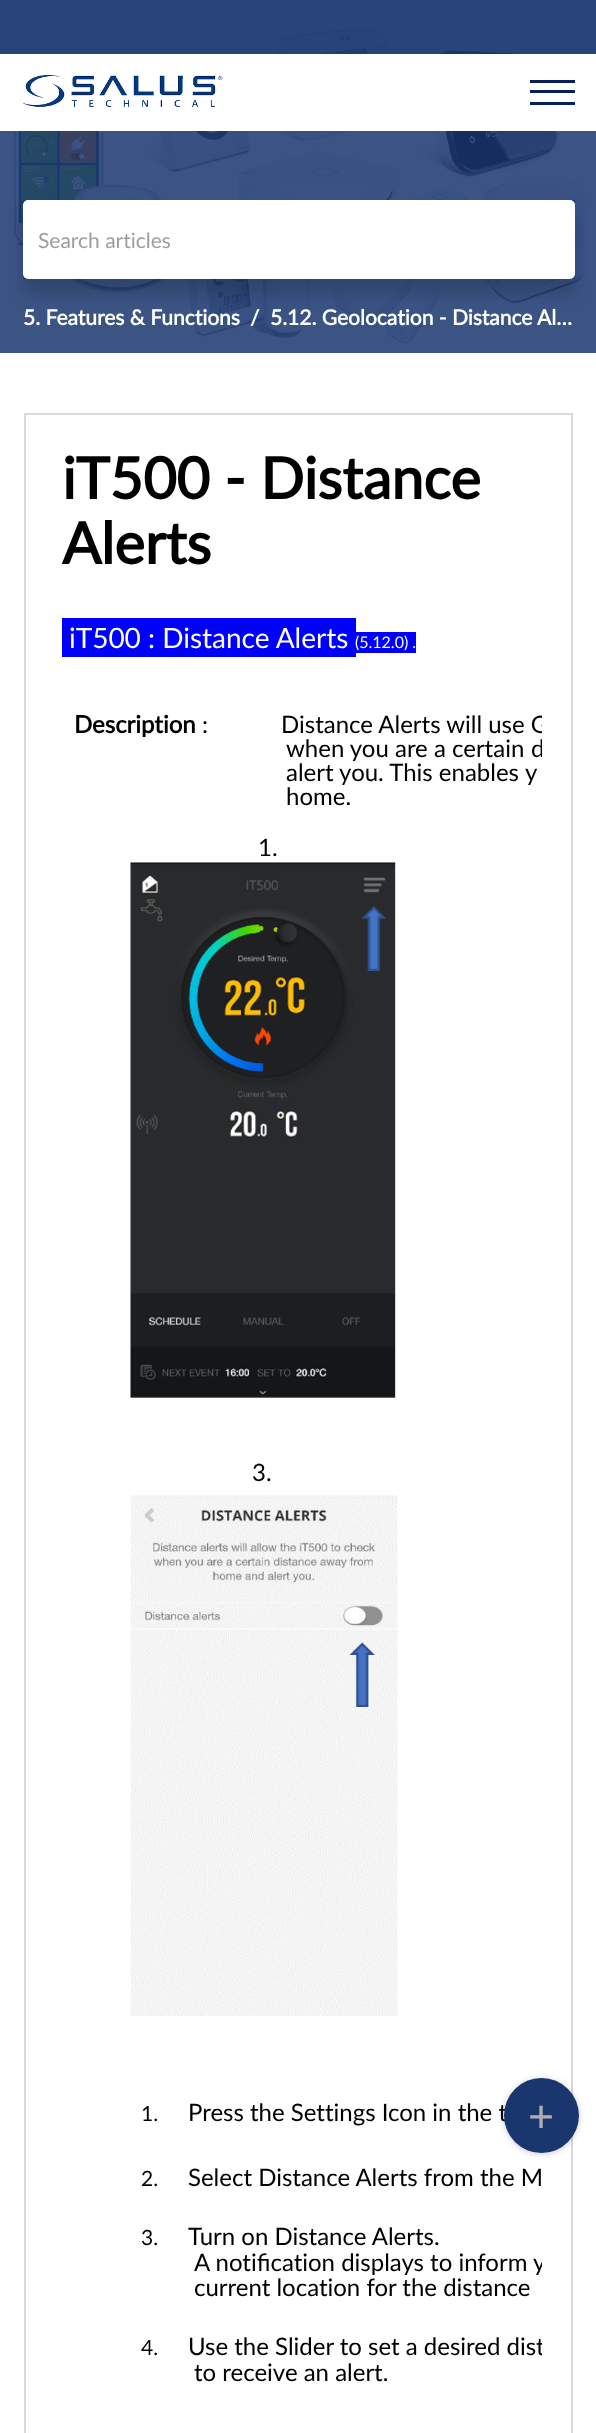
async function draw(canvas) {
	canvas.width = 596;
	canvas.height = 2433;
	const c = canvas.getContext('2d');
	c.miterLimit = 4;
	c.fontKerning = 'normal';
	async function loadImage(src) {
		const img = new Image();
		img.src = src;
		await img.decode();
		return img;
	}

	c.fillStyle = '#fff';
	c.fillRect(0, 0, 596, 2433);
	c.fillStyle = '#3c5485';
	c.fillRect(0, 0, 596, 353);
	c.drawImage(await loadImage('img1.png'), 13, 28, 573, 317);
	c.fillStyle = '#19366f8c';
	c.fillRect(0, 0, 596, 54);
	c.fillStyle = '#fff';
	c.fillRect(0, 54, 596, 77);
	c.drawImage(await loadImage('img2.png'), 23, 75, 200, 33);
	for (const [x, y, w, h, color] of [
		[530, 90, 45, 3, '#061f5c'],
		[530, 80, 45, 3, '#061f5c'],
		[530, 102, 45, 3, '#061f5c'],
	]) {
		c.fillStyle = color;
		c.fillRect(x, y, w, h);
	}
	c.fillStyle = '#00000029';
	c.filter = 'blur(7.5px)';
	c.beginPath();
	c.rect(23, 215, 552, 79);
	c.fill();
	c.filter = 'none';
	c.fillStyle = '#19366f';
	c.fillRect(23, 200, 552, 79);
	c.fillStyle = '#fff';
	c.beginPath();
	c.roundRect(23, 200, 552, 79, 5);
	c.fill();
	c.font = '21px Lato';
	c.fillStyle = '#9e9e9e';
	c.fillText('Search articles', 38, 248);
	c.strokeStyle = '#d4dadf';
	c.lineWidth = 2;
	c.strokeRect(25, 414, 547, 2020);
	c.fillStyle = '#00000033';
	c.filter = 'blur(3px)';
	c.beginPath();
	c.roundRect(504, 2079, 75, 75, 37.5);
	c.fill();
	c.filter = 'none';
	c.font = '24px Lato';
	c.fillStyle = '#000';
	c.fillText('Press the Settings Icon in the t', 188, 2121);
	c.fillStyle = '#19366f';
	c.beginPath();
	c.arc(541.5, 2115.5, 37.5, 0, 2 * Math.PI);
	c.fill();
	c.font = '45px Lato';
	c.fillStyle = '#afafaf';
	c.fillText('+', 528, 2132);
	c.font = 'bold 21px Lato';
	c.fillStyle = '#fff';
	for (const [text, x, y] of [
		['5. Features & Functions', 23, 325],
		['/', 250, 325],
		['5.12. Geolocation - Distance Al…', 270, 325],
	]) {
		c.fillText(text, x, y);
	}
	c.font = 'bold 57.5px Lato';
	c.fillStyle = '#000';
	c.fillText('iT500 - Distance', 62, 499);
	c.fillText('Alerts', 62, 564);
	c.fillStyle = '#00f';
	c.fillRect(62, 618, 294, 39);
	c.font = '28px Lato';
	c.fillStyle = '#fff';
	c.fillText('iT500 : Distance Alerts', 69, 648);
	c.fillStyle = '#00f';
	c.fillRect(356, 632, 60, 21);
	c.font = '16px Lato';
	c.fillStyle = '#fff';
	c.fillText('(5.12.0) .', 355, 648);
	c.font = 'bold 24px Lato';
	c.fillStyle = '#000';
	c.fillText('Description', 74, 733);
	c.font = '24px Lato';
	c.fillText(':', 202, 733);
	c.save();
	c.beginPath();
	c.rect(56, 615, 486, 1818);
	c.clip();
	c.fillText('Distance Alerts will use G', 281, 733);
	c.restore();
	c.fillText('when you are a certain', 286, 757);
	c.save();
	c.beginPath();
	c.rect(56, 615, 486, 1818);
	c.clip();
	c.fillText('d', 531, 757);
	c.restore();
	for (const [text, x, y] of [
		['alert you. This enables', 286, 781],
		['y', 525, 781],
		['home.', 286, 805],
		['1.', 258, 856],
	]) {
		c.fillText(text, x, y);
	}
	c.drawImage(await loadImage('img3.png'), 130, 862, 266, 536);
	c.fillText('3.', 252, 1481);
	c.drawImage(await loadImage('img4.png'), 130, 1495, 268, 521);
	c.font = '21px Lato';
	c.fillText('1.', 141, 2121);
	c.fillText('2.', 141, 2186);
	c.font = '24px Lato';
	c.fillText('Select Distance Alerts from the M', 188, 2186);
	c.font = '21px Lato';
	c.fillText('3.', 141, 2245);
	c.font = '24px Lato';
	c.fillText('Turn on Distance Alerts.', 188, 2245);
	c.save();
	c.beginPath();
	c.rect(56, 615, 486, 1818);
	c.clip();
	c.fillText('A notification displays to inform y', 194, 2271);
	c.restore();
	c.fillText('current location for the distance', 194, 2296);
	c.font = '21px Lato';
	c.fillText('4.', 141, 2355);
	c.save();
	c.beginPath();
	c.rect(56, 615, 486, 1818);
	c.clip();
	c.font = '24px Lato';
	c.fillText('Use the Slider to set a desired dist', 188, 2355);
	c.restore();
	c.font = '24px Lato';
	c.fillText('to receive an alert.', 194, 2381);
}

draw(document.querySelector('canvas'));
